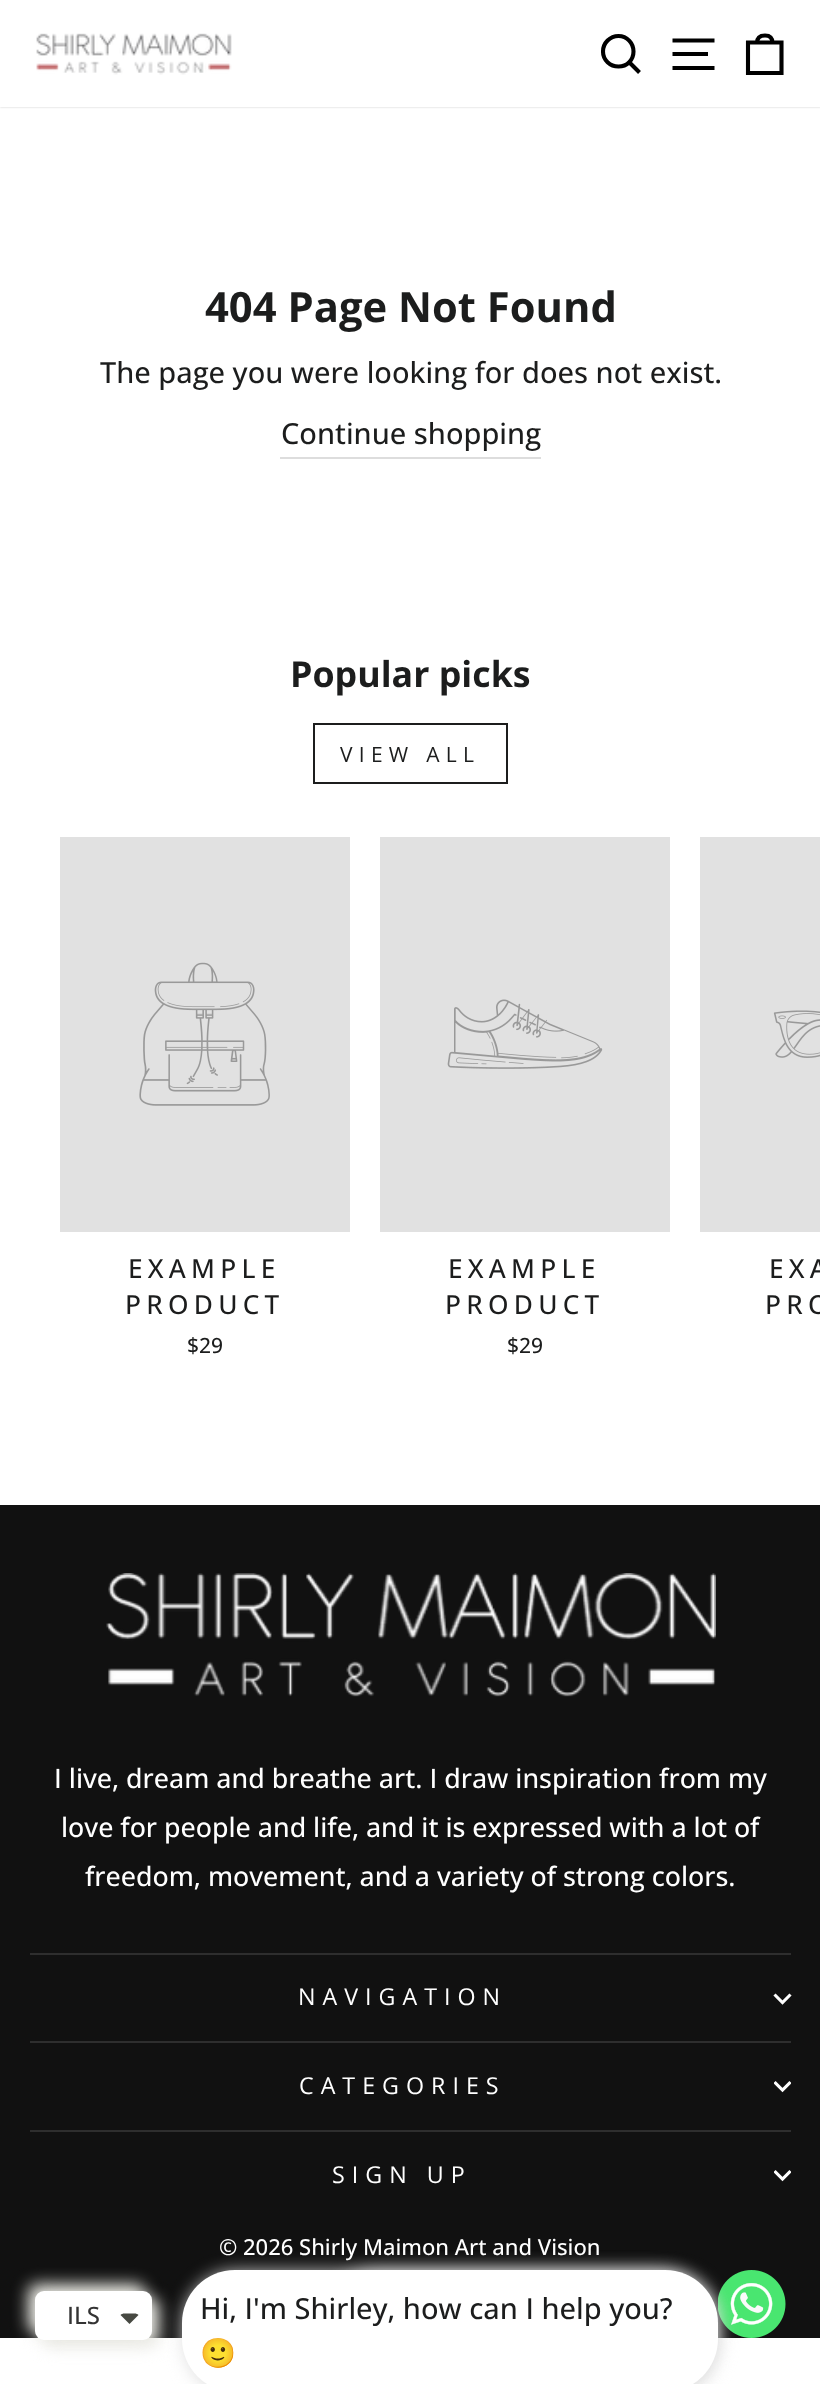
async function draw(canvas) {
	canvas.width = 820;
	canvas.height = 2384;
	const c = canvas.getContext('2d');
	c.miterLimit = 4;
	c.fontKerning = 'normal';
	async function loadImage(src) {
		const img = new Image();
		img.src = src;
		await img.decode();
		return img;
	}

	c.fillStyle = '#fff';
	c.fillRect(0, 0, 820, 2384);
	c.fillStyle = '#00000033';
	c.filter = 'blur(1px)';
	c.beginPath();
	c.rect(0, 0, 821, 107);
	c.fill();
	c.filter = 'none';
	c.fillStyle = '#fff';
	c.fillRect(0, 0, 820, 107);
	c.drawImage(await loadImage('img1.png'), 36, 33, 196, 42);
	c.beginPath();
	c.moveTo(633.5, 51.5);
	c.bezierCurveTo(633.5, 60, 627, 66.5, 618.5, 66.5);
	c.bezierCurveTo(610, 66.5, 603, 60, 603, 51.5);
	c.bezierCurveTo(603, 43, 610, 36, 618.5, 36);
	c.bezierCurveTo(627, 36, 633.5, 43, 633.5, 51.5);
	c.closePath();
	c.moveTo(639.5, 72.5);
	c.lineTo(629.5, 62.5);
	c.strokeStyle = '#000';
	c.lineWidth = 4.1;
	c.stroke();
	c.beginPath();
	c.moveTo(672.5, 40.5);
	c.lineTo(714.5, 40.5);
	c.moveTo(672.5, 54);
	c.lineTo(708, 54);
	c.moveTo(672.5, 68);
	c.lineTo(714.5, 68);
	c.stroke();
	c.beginPath();
	c.moveTo(748, 42.5);
	c.lineTo(781.5, 42.5);
	c.lineTo(781.5, 73);
	c.lineTo(748, 73);
	c.closePath();
	c.moveTo(757, 43);
	c.bezierCurveTo(757, 37, 760.5, 35.5, 765, 35.5);
	c.bezierCurveTo(769, 35.5, 772.5, 37, 772.5, 43);
	c.stroke();
	c.font = 'bold 41.75px Open Sans';
	c.fillStyle = '#1c1d1d';
	c.fillText('404 Page Not Found', 205, 322);
	c.font = '500 29px Open Sans';
	c.fillText('The page you were looking for does not exist.', 100, 383);
	c.fillStyle = '#ddd';
	c.fillRect(280, 457, 261, 2);
	c.fillStyle = '#1c1d1d';
	c.fillText('Continue shopping', 281, 444);
	c.font = 'bold 35.75px Open Sans';
	c.fillText('Popular picks', 290, 687);
	c.strokeStyle = '#1c1d1d';
	c.lineWidth = 2;
	c.strokeRect(314, 724, 193, 59);
	c.letterSpacing = '6.25px';
	c.font = '21px Open Sans';
	c.fillText('VIEW ALL', 340, 762);
	c.fillStyle = '#e1e1e1';
	c.fillRect(60, 837, 290, 395);
	c.drawImage(await loadImage('img2.png'), 139, 962, 131, 144);
	c.letterSpacing = '5.25px';
	c.font = '500 26.25px Open Sans';
	c.fillStyle = '#1c1d1d';
	c.fillText('EXAMPLE', 128, 1278);
	c.fillText('PRODUCT', 125, 1314);
	c.letterSpacing = '0px';
	c.font = '500 21px Open Sans';
	c.fillText('$29', 187, 1353);
	c.fillStyle = '#e1e1e1';
	c.fillRect(380, 837, 290, 395);
	c.drawImage(await loadImage('img3.png'), 447, 999, 156, 70);
	c.letterSpacing = '5.25px';
	c.font = '500 26.25px Open Sans';
	c.fillStyle = '#1c1d1d';
	c.fillText('EXAMPLE', 448, 1278);
	c.fillText('PRODUCT', 445, 1314);
	c.letterSpacing = '0px';
	c.font = '500 21px Open Sans';
	c.fillText('$29', 507, 1353);
	c.fillStyle = '#e1e1e1';
	c.fillRect(700, 837, 120, 395);
	c.drawImage(await loadImage('img4.png'), 773, 1010, 47, 48);
	c.letterSpacing = '5.25px';
	c.font = '500 26.25px Open Sans';
	c.fillStyle = '#1c1d1d';
	c.fillText('EXA', 769, 1278);
	c.fillText('PRO', 765, 1314);
	c.fillStyle = '#111';
	c.fillRect(0, 1505, 820, 833);
	c.drawImage(await loadImage('img5.png'), 106, 1573, 610, 124);
	c.letterSpacing = '0px';
	c.font = '500 26.75px Open Sans';
	c.fillStyle = '#fff';
	for (const [text, x, y] of [
		['I live, dream and breathe art. I draw inspiration from my', 54, 1788],
		['love for people and life, and it is expressed with a lot of', 61, 1837],
		['freedom, movement, and a variety of strong colors.', 85, 1886],
	]) {
		c.fillText(text, x, y);
	}
	c.fillStyle = '#2e2e2e';
	c.fillRect(30, 1953, 761, 2);
	c.letterSpacing = '7px';
	c.font = '23.25px Open Sans';
	c.fillStyle = '#fff';
	c.fillText('NAVIGATION', 298, 2005);
	c.beginPath();
	c.moveTo(774.5, 1994.5);
	c.lineTo(782.5, 2002.5);
	c.lineTo(790.5, 1994.5);
	c.strokeStyle = '#fff';
	c.lineWidth = 3.1;
	c.stroke();
	c.fillStyle = '#2e2e2e';
	c.fillRect(30, 2041, 761, 2);
	c.fillStyle = '#fff';
	c.fillText('CATEGORIES', 299, 2094);
	c.save();
	c.beginPath();
	c.rect(774, 2077, 17, 18);
	c.clip();
	c.beginPath();
	c.moveTo(774.5, 2082);
	c.lineTo(782.5, 2090);
	c.lineTo(790.5, 2082);
	c.stroke();
	c.restore();
	c.fillStyle = '#2e2e2e';
	c.fillRect(30, 2130, 761, 2);
	c.fillStyle = '#fff';
	c.fillText('SIGN UP', 332, 2183);
	c.save();
	c.beginPath();
	c.rect(774, 2167, 17, 17);
	c.clip();
	c.beginPath();
	c.moveTo(774.5, 2171);
	c.lineTo(782.5, 2179);
	c.lineTo(790.5, 2171);
	c.stroke();
	c.restore();
	c.letterSpacing = '0px';
	c.font = '500 22px Open Sans';
	c.fillText('© 2026 Shirly Maimon Art and Vision', 219, 2255);
	c.fillStyle = '#e8e8e2';
	c.filter = 'blur(8px)';
	c.beginPath();
	c.roundRect(28, 2284, 117, 49, 9);
	c.fill();
	c.filter = 'none';
	c.drawImage(await loadImage('img6.png'), 718, 2270, 68, 68);
	c.fillStyle = '#ddd';
	c.filter = 'blur(9px)';
	c.beginPath();
	c.roundRect(324, 2272, 387, 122, 53);
	c.fill();
	c.filter = 'none';
	c.filter = 'blur(9px)';
	c.beginPath();
	c.roundRect(184, 2272, 535, 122, 53);
	c.fill();
	c.filter = 'none';
	c.fillStyle = '#fff';
	c.beginPath();
	c.roundRect(182, 2270, 536, 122, 53);
	c.fill();
	c.fillStyle = '#e8e8e2';
	c.filter = 'blur(8px)';
	c.beginPath();
	c.roundRect(42, 2298, 117, 49, 9);
	c.fill();
	c.filter = 'none';
	c.fillStyle = '#fff';
	c.beginPath();
	c.roundRect(35, 2291, 117, 49, 9);
	c.fill();
	c.font = '500 24px Open Sans';
	c.fillStyle = '#333';
	c.fillText('ILS', 67, 2324);
	c.fillStyle = '#474942';
	c.beginPath();
	c.moveTo(124, 2313.5);
	c.bezierCurveTo(123, 2313.5, 121.5, 2314, 120.5, 2315);
	c.lineTo(129.5, 2324);
	c.lineTo(138.5, 2315);
	c.bezierCurveTo(137.5, 2314, 136, 2313.5, 135, 2313.5);
	c.closePath();
	c.fill();
	c.font = '500 29px Open Sans';
	c.fillStyle = '#1c1d1d';
	c.fillText('Hi, I\'m Shirley, how can I help you?', 200, 2319);
	c.font = '29px Noto Color Emoji';
	c.fillText('🙂', 200, 2363);
}

draw(document.querySelector('canvas'));
